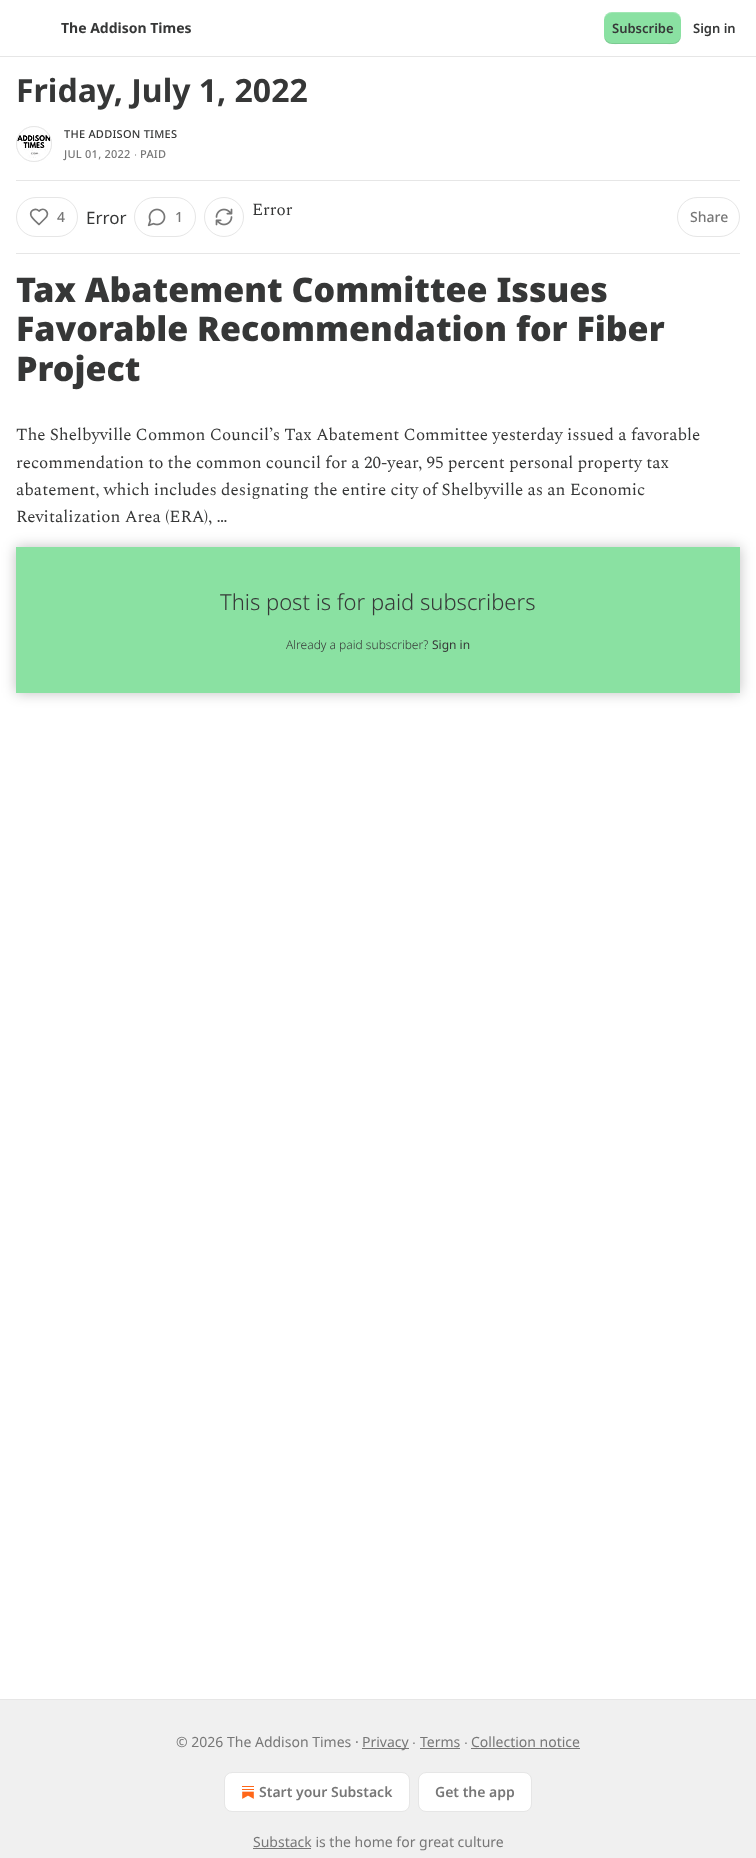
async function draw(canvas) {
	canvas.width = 756;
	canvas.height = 1858;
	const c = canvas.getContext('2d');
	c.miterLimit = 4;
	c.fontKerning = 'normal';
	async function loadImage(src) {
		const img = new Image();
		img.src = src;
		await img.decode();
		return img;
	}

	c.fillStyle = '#fff';
	c.fillRect(0, 0, 756, 1858);
	c.fillStyle = '#e6e6e6';
	c.fillRect(0, 56, 756, 1);
	c.font = 'bold 14px Noto Sans';
	c.fillStyle = '#363737';
	c.fillText('The Addison Times', 61, 33);
	c.fillStyle = '#8ae1a2';
	c.beginPath();
	c.roundRect(604, 12, 77, 32, 8);
	c.fill();
	c.fillStyle = '#0000001a';
	c.beginPath();
	c.moveTo(604, 35);
	c.bezierCurveTo(604, 46, 614, 44, 622, 44);
	c.lineTo(663, 44);
	c.bezierCurveTo(671, 44, 681, 46, 681, 35);
	c.bezierCurveTo(681, 39, 677, 43, 673, 43);
	c.lineTo(612, 43);
	c.bezierCurveTo(608, 43, 604, 39, 604, 35);
	c.closePath();
	c.fill();
	c.fillStyle = '#ffffff33';
	c.beginPath();
	c.moveTo(612, 13);
	c.lineTo(673, 13);
	c.bezierCurveTo(677, 13, 681, 17, 681, 21);
	c.bezierCurveTo(681, 10, 671, 12, 663, 12);
	c.lineTo(622, 12);
	c.bezierCurveTo(614, 12, 604, 10, 604, 21);
	c.bezierCurveTo(604, 17, 608, 13, 612, 13);
	c.closePath();
	c.fill();
	c.font = '600 13px Noto Sans';
	c.fillStyle = '#363737';
	c.fillText('Subscribe', 612, 33);
	c.fillText('Sign in', 693, 33);
	c.font = 'bold 32px Noto Sans';
	c.fillText('Friday, July 1, 2022', 16, 102);
	c.beginPath();
	c.arc(34, 144, 17.5, 0, 2 * Math.PI);
	c.strokeStyle = '#e6e6e6';
	c.stroke();
	c.drawImage(await loadImage('img1.png'), 16, 126, 36, 36);
	c.beginPath();
	c.arc(34, 144, 17.5, 0, 2 * Math.PI);
	c.stroke();
	c.letterSpacing = '0.25px';
	c.font = '500 11px Noto Sans';
	c.fillText('THE ADDISON TIMES', 64, 138);
	c.fillStyle = '#777';
	c.fillText('JUL 01, 2022', 64, 158);
	c.font = '11px Liberation Sans';
	c.fillText('∙', 134, 158);
	c.font = '500 11px Noto Sans';
	c.fillText('PAID', 140, 158);
	c.fillStyle = '#e6e6e6';
	c.fillRect(16, 180, 724, 1);
	c.fillRect(16, 253, 724, 1);
	c.beginPath();
	c.arc(224, 217, 19.5, 0, 2 * Math.PI);
	c.stroke();
	c.drawImage(await loadImage('img2.png'), 215, 208, 18, 18);
	c.letterSpacing = '0px';
	c.font = '17px Spectral';
	c.fillStyle = '#363737';
	c.fillText('Error', 252, 215);
	c.beginPath();
	c.roundRect(16.5, 197.5, 61, 39, 19.5);
	c.stroke();
	c.beginPath();
	c.moveTo(45, 218.5);
	c.bezierCurveTo(51, 212.5, 44, 206.5, 39, 211);
	c.bezierCurveTo(35.5, 207.5, 29.5, 210.5, 31, 215.5);
	c.bezierCurveTo(32, 218.5, 37, 222.5, 39, 224.5);
	c.closePath();
	c.strokeStyle = '#777';
	c.lineWidth = 1.7;
	c.lineCap = 'round';
	c.lineJoin = 'round';
	c.stroke();
	c.font = '500 14px Noto Sans';
	c.fillStyle = '#777';
	c.fillText('4', 57, 222);
	c.font = '17px Noto Sans';
	c.fillStyle = '#363737';
	c.fillText('Error', 86, 224);
	c.beginPath();
	c.roundRect(134.5, 197.5, 61, 39, 19.5);
	c.strokeStyle = '#e6e6e6';
	c.lineWidth = 1;
	c.lineJoin = 'miter';
	c.stroke();
	c.drawImage(await loadImage('img3.png'), 147, 208, 19, 19);
	c.font = '500 14px Noto Sans';
	c.fillStyle = '#777';
	c.fillText('1', 175, 222);
	c.beginPath();
	c.roundRect(677.5, 197.5, 62, 39, 19.5);
	c.stroke();
	c.fillText('Share', 690, 222);
	c.font = '900 34px Noto Sans';
	c.fillStyle = '#363737';
	for (const [text, x, y] of [
		['Tax Abatement Committee Issues', 16, 302],
		['Favorable Recommendation for Fiber', 16, 341],
		['Project', 16, 381],
	]) {
		c.fillText(text, x, y);
	}
	c.font = '17px Spectral';
	for (const [text, x, y] of [
		['The Shelbyville Common Council’s Tax Abatement Committee yesterday issued a favorable', 16, 440],
		['recommendation to the common council for a 20-year, 95 percent personal property tax', 16, 468],
		['abatement, which includes designating the entire city of Shelbyville as an Economic', 16, 495],
		['Revitalization Area (ERA), …', 16, 522],
	]) {
		c.fillText(text, x, y);
	}
	c.fillStyle = '#8ae1a2';
	c.fillRect(16, 547, 724, 146);
	c.save();
	c.beginPath();
	c.moveTo(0, 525);
	c.lineTo(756, 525);
	c.lineTo(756, 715);
	c.lineTo(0, 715);
	c.closePath();
	c.moveTo(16, 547);
	c.lineTo(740, 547);
	c.lineTo(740, 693);
	c.lineTo(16, 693);
	c.closePath();
	c.clip('evenodd');
	c.fillStyle = '#00000040';
	c.filter = 'blur(7px)';
	c.beginPath();
	c.rect(16, 547, 724, 146);
	c.fill();
	c.filter = 'none';
	c.restore();
	c.font = '300 22px Noto Sans';
	c.fillStyle = '#363737';
	c.fillText('This post is for paid subscribers', 220, 610);
	c.font = '300 12px Noto Sans';
	c.fillText('Already a paid subscriber?', 286, 649);
	c.font = '12px Noto Sans';
	c.fillText('Sign in', 432, 649);
	c.fillStyle = '#f0f0f0';
	c.fillRect(0, 1700, 756, 158);
	c.fillStyle = '#e6e6e6';
	c.fillRect(0, 1699, 756, 1);
	c.font = '14px Noto Sans';
	c.fillStyle = '#777';
	c.fillText('© 2026 The Addison Times ·', 176, 1747);
	c.fillRect(362, 1748, 47, 1);
	c.fillText('Privacy', 362, 1747);
	c.font = '14px Liberation Sans';
	c.fillText('∙', 412, 1747);
	c.font = '14px Noto Sans';
	c.fillText('Terms', 420, 1747);
	c.fillRect(420, 1748, 40, 1);
	c.font = '14px Liberation Sans';
	c.fillText('∙', 464, 1747);
	c.font = '14px Noto Sans';
	c.fillText('Collection notice', 471, 1747);
	c.fillRect(471, 1748, 109, 1);
	c.fillStyle = '#fff';
	c.beginPath();
	c.roundRect(224.5, 1772.5, 185, 39, 7.5);
	c.fill();
	c.stroke();
	c.drawImage(await loadImage('img4.png'), 242, 1786, 12, 13);
	c.font = '600 14px Noto Sans';
	c.fillStyle = '#777';
	c.fillText('Start your Substack', 259, 1797);
	c.fillStyle = '#fff';
	c.beginPath();
	c.roundRect(418.5, 1772.5, 113, 39, 7.5);
	c.fill();
	c.stroke();
	c.fillStyle = '#777';
	c.fillText('Get the app', 435, 1797);
	c.fillRect(253, 1848, 58, 1);
	c.font = '14px Noto Sans';
	c.fillText('Substack is the home for great culture', 253, 1847);
}

draw(document.querySelector('canvas'));
